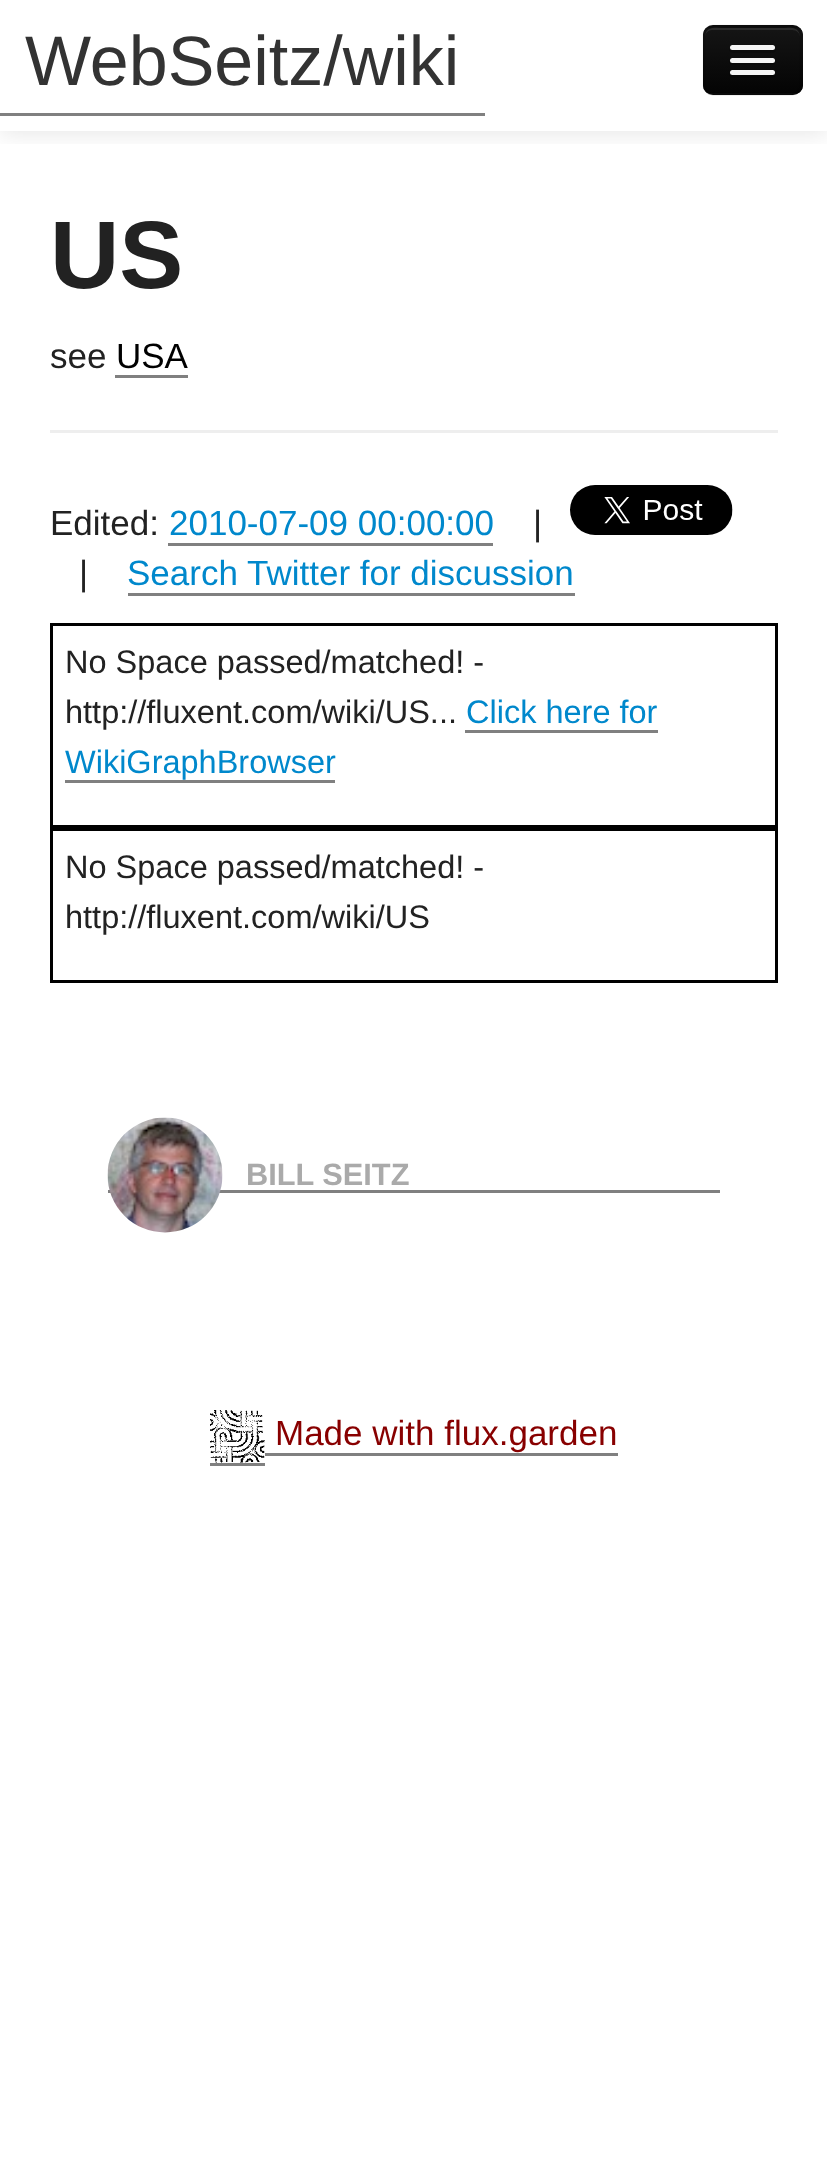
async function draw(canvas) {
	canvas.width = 827;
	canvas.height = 2161;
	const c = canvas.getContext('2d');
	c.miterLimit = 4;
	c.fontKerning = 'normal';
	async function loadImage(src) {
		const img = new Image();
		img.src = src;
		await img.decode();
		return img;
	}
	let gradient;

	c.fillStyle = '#fff';
	c.fillRect(0, 0, 827, 2161);
	c.save();
	c.beginPath();
	c.rect(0, 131, 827, 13);
	c.clip();
	c.fillStyle = '#0000001a';
	c.filter = 'blur(12.5px)';
	c.beginPath();
	c.rect(0, 3, 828, 130);
	c.fill();
	c.filter = 'none';
	c.restore();
	c.fillRect(0, 130, 827, 1);
	c.fillStyle = '#808080';
	c.fillRect(0, 113, 485, 3);
	c.font = '70px Liberation Sans';
	c.fillStyle = '#333';
	c.fillText('WebSeitz/wiki', 25, 85);
	c.fillStyle = '#0e0e0e';
	c.beginPath();
	c.roundRect(703, 25, 100, 70, 10);
	c.fill();
	c.save();
	c.beginPath();
	c.roundRect(703, 25, 100, 70, 10);
	c.clip();
	gradient = c.createLinearGradient(753, 27, 753, 93);
	gradient.addColorStop(0, '#151515');
	gradient.addColorStop(1, '#040404');
	c.fillStyle = gradient;
	c.fillRect(703, 28, 100, 65);
	c.restore();
	c.fillStyle = '#2c2c2c';
	c.beginPath();
	c.moveTo(712, 30);
	c.lineTo(792, 30);
	c.bezierCurveTo(797, 30, 800, 33, 800, 38);
	c.bezierCurveTo(800, 25, 789, 28, 779, 28);
	c.lineTo(726, 28);
	c.bezierCurveTo(716, 28, 705, 25, 705, 38);
	c.bezierCurveTo(705, 33, 708, 30, 712, 30);
	c.closePath();
	c.fill();
	c.beginPath();
	c.moveTo(798.5, 91);
	c.bezierCurveTo(797, 93, 795, 94, 792.5, 94);
	c.lineTo(712.5, 94);
	c.bezierCurveTo(710, 94, 708, 93, 706.5, 91);
	c.strokeStyle = '#00000040';
	c.lineWidth = 2.5;
	c.stroke();
	c.beginPath();
	c.moveTo(706.5, 91);
	c.bezierCurveTo(704.5, 89.5, 704, 87.5, 704, 85);
	c.lineTo(704, 35);
	c.bezierCurveTo(704, 32.5, 704.5, 30.5, 706.5, 29);
	c.bezierCurveTo(708, 27, 710, 26, 712.5, 26);
	c.lineTo(792.5, 26);
	c.bezierCurveTo(795, 26, 797, 27, 798.5, 29);
	c.bezierCurveTo(800.5, 30.5, 801, 32.5, 801, 35);
	c.lineTo(801, 85);
	c.bezierCurveTo(801, 87.5, 800.5, 89.5, 798.5, 91);
	c.strokeStyle = '#0000001a';
	c.stroke();
	c.fillStyle = '#0b0b0b';
	c.beginPath();
	c.moveTo(730, 49);
	c.bezierCurveTo(727, 53, 735, 53, 739, 53);
	c.lineTo(766, 53);
	c.bezierCurveTo(770, 53, 778, 53, 775, 49);
	c.lineTo(773, 50);
	c.lineTo(732, 50);
	c.closePath();
	c.fill();
	c.fillStyle = '#f5f5f5';
	c.beginPath();
	c.roundRect(730, 45, 45, 5, 2.5);
	c.fill();
	c.fillStyle = '#090909';
	c.beginPath();
	c.moveTo(730, 61);
	c.bezierCurveTo(727, 66, 739, 65, 739, 65);
	c.lineTo(766, 65);
	c.bezierCurveTo(766, 65, 778, 66, 775, 61);
	c.bezierCurveTo(774, 62, 773, 62, 772, 62);
	c.lineTo(732, 62);
	c.bezierCurveTo(732, 62, 731, 62, 730, 61);
	c.closePath();
	c.fill();
	c.fillStyle = '#f5f5f5';
	c.beginPath();
	c.roundRect(730, 58, 45, 5, 2.5);
	c.fill();
	c.fillStyle = '#060606';
	c.beginPath();
	c.moveTo(730, 74);
	c.bezierCurveTo(727, 78, 735, 78, 739, 78);
	c.lineTo(766, 78);
	c.bezierCurveTo(770, 78, 778, 78, 775, 74);
	c.lineTo(773, 75);
	c.lineTo(732, 75);
	c.closePath();
	c.fill();
	c.fillStyle = '#f5f5f5';
	c.beginPath();
	c.roundRect(730, 70, 45, 5, 2.5);
	c.fill();
	c.font = 'bold 96px Liberation Sans';
	c.fillStyle = '#222';
	c.fillText('US', 50, 288);
	c.font = '35px Liberation Sans';
	c.fillText('see', 50, 368);
	c.fillStyle = '#000';
	c.fillText('USA', 116, 368);
	c.fillStyle = '#808080';
	c.fillRect(115, 375, 73, 3);
	c.fillStyle = '#eee';
	c.fillRect(50, 430, 728, 3);
	c.fillStyle = '#222';
	c.fillText('Edited:', 50, 535);
	c.fillStyle = '#08c';
	c.fillText('2010-07-09 00:00:00', 169, 535);
	c.fillStyle = '#808080';
	c.fillRect(168, 543, 325, 3);
	c.fillStyle = '#222';
	c.fillText('|', 533, 535);
	c.drawImage(await loadImage('img1.png'), 570, 485, 163, 50);
	c.fillText('|', 79, 585);
	c.fillStyle = '#08c';
	c.fillText('Search Twitter for discussion', 127, 585);
	c.fillStyle = '#808080';
	c.fillRect(128, 593, 447, 3);
	c.strokeStyle = '#000';
	c.lineWidth = 3;
	c.strokeRect(51.5, 624.5, 725, 202);
	c.font = '32.5px Liberation Sans';
	c.fillStyle = '#222';
	c.fillText('No Space passed/matched! -', 65, 673);
	c.fillText('http://fluxent.com/wiki/US...', 65, 723);
	c.fillStyle = '#08c';
	c.fillText('Click here for', 466, 723);
	c.fillStyle = '#808080';
	c.fillRect(465, 730, 193, 3);
	c.fillStyle = '#08c';
	c.fillText('WikiGraphBrowser', 65, 773);
	c.fillStyle = '#808080';
	c.fillRect(65, 780, 270, 3);
	c.strokeRect(51.5, 829.5, 725, 152);
	c.fillStyle = '#222';
	c.fillText('No Space passed/matched! -', 65, 878);
	c.fillText('http://fluxent.com/wiki/US', 65, 928);
	c.fillStyle = '#808080';
	c.fillRect(108, 1190, 612, 3);
	c.drawImage(await loadImage('img2.png'), 107, 1117, 116, 116);
	c.font = 'bold 30.75px Liberation Sans';
	c.fillStyle = '#aaa';
	c.fillText('BILL SEITZ', 246, 1185);
	c.drawImage(await loadImage('img3.png'), 210, 1410, 55, 53);
	c.font = '35px Liberation Sans';
	c.fillStyle = '#800';
	c.fillText('Made with flux.garden', 275, 1445);
	c.fillStyle = '#808080';
	c.fillRect(210, 1463, 55, 3);
	c.fillRect(265, 1453, 353, 3);
}

draw(document.querySelector('canvas'));
